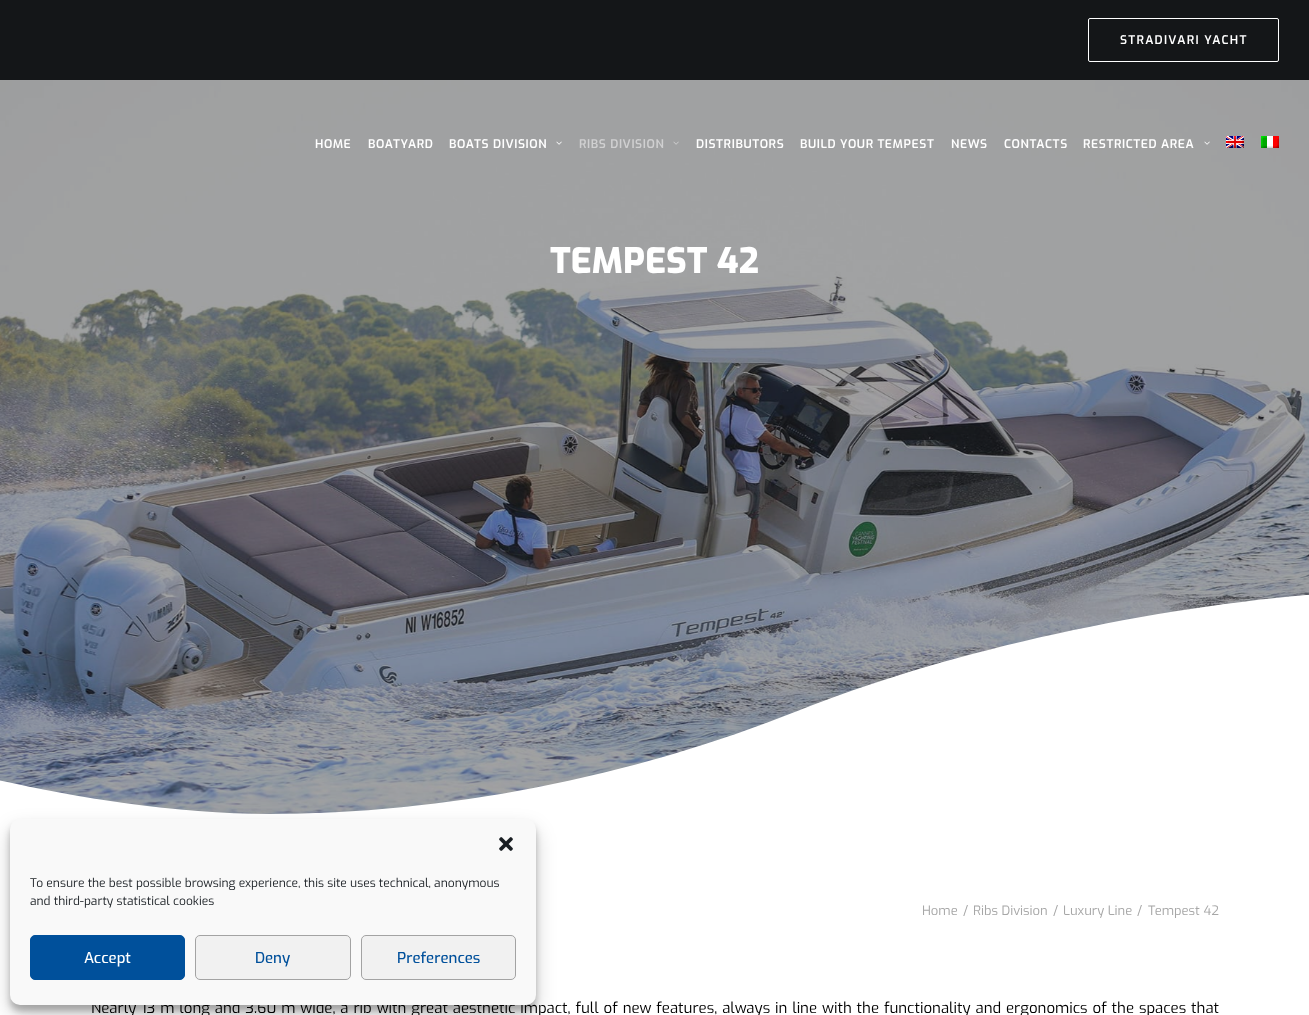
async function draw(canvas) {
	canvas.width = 1309;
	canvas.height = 1015;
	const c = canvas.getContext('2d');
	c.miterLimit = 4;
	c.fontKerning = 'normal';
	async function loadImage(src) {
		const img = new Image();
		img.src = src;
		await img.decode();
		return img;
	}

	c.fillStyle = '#fff';
	c.fillRect(0, 0, 1309, 1015);
	c.fillStyle = '#141618';
	c.fillRect(0, 0, 1309, 80);
	c.beginPath();
	c.roundRect(1088.5, 18.5, 190, 43, 1.5);
	c.strokeStyle = '#fff';
	c.stroke();
	c.letterSpacing = '1.25px';
	c.font = '600 12px Exo';
	c.fillStyle = '#fff';
	c.fillText('STRADIVARI YACHT', 1120, 44);
	c.drawImage(await loadImage('img6.png'), 0, 80, 1309, 734);
	c.letterSpacing = '0.6px';
	for (const [text, x, y] of [
		['HOME', 315, 148],
		['BOATYARD', 368, 148],
		['BOATS DIVISION', 449, 148],
	]) {
		c.fillText(text, x, y);
	}
	c.drawImage(await loadImage('img1.png'), 556, 141, 6, 4);
	c.fillStyle = '#d0d0d1';
	c.fillText('RIBS DIVISION', 579, 148);
	c.drawImage(await loadImage('img2.png'), 673, 141, 6, 4);
	c.fillStyle = '#fff';
	for (const [text, x, y] of [
		['DISTRIBUTORS', 696, 148],
		['BUILD YOUR TEMPEST', 800, 148],
		['NEWS', 951, 148],
		['CONTACTS', 1004, 148],
		['RESTRICTED AREA', 1083, 148],
	]) {
		c.fillText(text, x, y);
	}
	c.drawImage(await loadImage('img3.png'), 1204, 141, 6, 4);
	c.drawImage(await loadImage('img4.png'), 1226, 136, 18, 12);
	c.drawImage(await loadImage('img5.png'), 1261, 136, 18, 12);
	c.letterSpacing = '0px';
	c.font = '800 35px Exo';
	c.fillText('TEMPEST 42', 550, 273);
	c.save();
	c.beginPath();
	c.rect(0, 560, 1309, 303);
	c.clip();
	c.beginPath();
	c.moveTo(-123, 749);
	c.bezierCurveTo(-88, 759, 97, 814, 270, 814);
	c.bezierCurveTo(442, 814, 631, 778, 800, 710);
	c.bezierCurveTo(970, 642, 1228, 589, 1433, 589);
	c.lineTo(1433, 864);
	c.lineTo(-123, 864);
	c.closePath();
	c.fill();
	c.restore();
	c.font = '13px Exo';
	c.fillStyle = '#a7a7a7';
	for (const [text, x, y] of [
		['Home', 922, 915],
		['/', 963, 915],
		['Ribs Division', 973, 915],
		['/', 1053, 915],
		['Luxury Line', 1063, 915],
		['/', 1137, 915],
		['Tempest 42', 1148, 915],
	]) {
		c.fillText(text, x, y);
	}
	c.wordSpacing = '0.85px';
	c.font = '15px Exo';
	c.fillStyle = '#000';
	c.fillText('Nearly 13 m long and 3.60 m wide, a rib with great aesthetic impact, full of new features, always in line with the functionality and ergonomics of the spaces that', 91, 1013);
	c.fillStyle = '#0000003b';
	c.filter = 'blur(3px)';
	c.beginPath();
	c.roundRect(10, 825, 526, 186, 10);
	c.fill();
	c.filter = 'none';
	c.fillStyle = '#00000030';
	c.filter = 'blur(10px)';
	c.beginPath();
	c.roundRect(10, 829, 526, 186, 10);
	c.fill();
	c.filter = 'none';
	c.fillStyle = '#f9f9f9';
	c.beginPath();
	c.roundRect(10, 819, 526, 186, 10);
	c.fill();
	c.drawImage(await loadImage('img7.png'), 499, 837, 14, 14);
	c.wordSpacing = '0px';
	c.font = '12px Exo';
	c.fillStyle = '#191e23';
	c.fillText('To ensure the best possible browsing experience, this site uses technical, anonymous', 30, 887);
	c.fillText('and third-party statistical cookies', 30, 905);
	c.fillStyle = '#00509b';
	c.beginPath();
	c.roundRect(30.5, 935.5, 154, 44, 4.5);
	c.fill();
	c.strokeStyle = '#00509b';
	c.stroke();
	c.font = '500 15px Exo';
	c.fillStyle = '#fff';
	c.fillText('Accept', 84, 963);
	c.fillStyle = '#f1f1f1';
	c.beginPath();
	c.roundRect(195.5, 935.5, 155, 44, 4.5);
	c.fill();
	c.strokeStyle = '#a3a3a3';
	c.stroke();
	c.fillStyle = '#00509b';
	c.fillText('Deny', 255, 963);
	c.fillStyle = '#f1f1f1';
	c.beginPath();
	c.roundRect(361.5, 935.5, 154, 44, 4.5);
	c.fill();
	c.stroke();
	c.fillStyle = '#00509b';
	c.fillText('Preferences', 397, 963);
}

draw(document.querySelector('canvas'));
